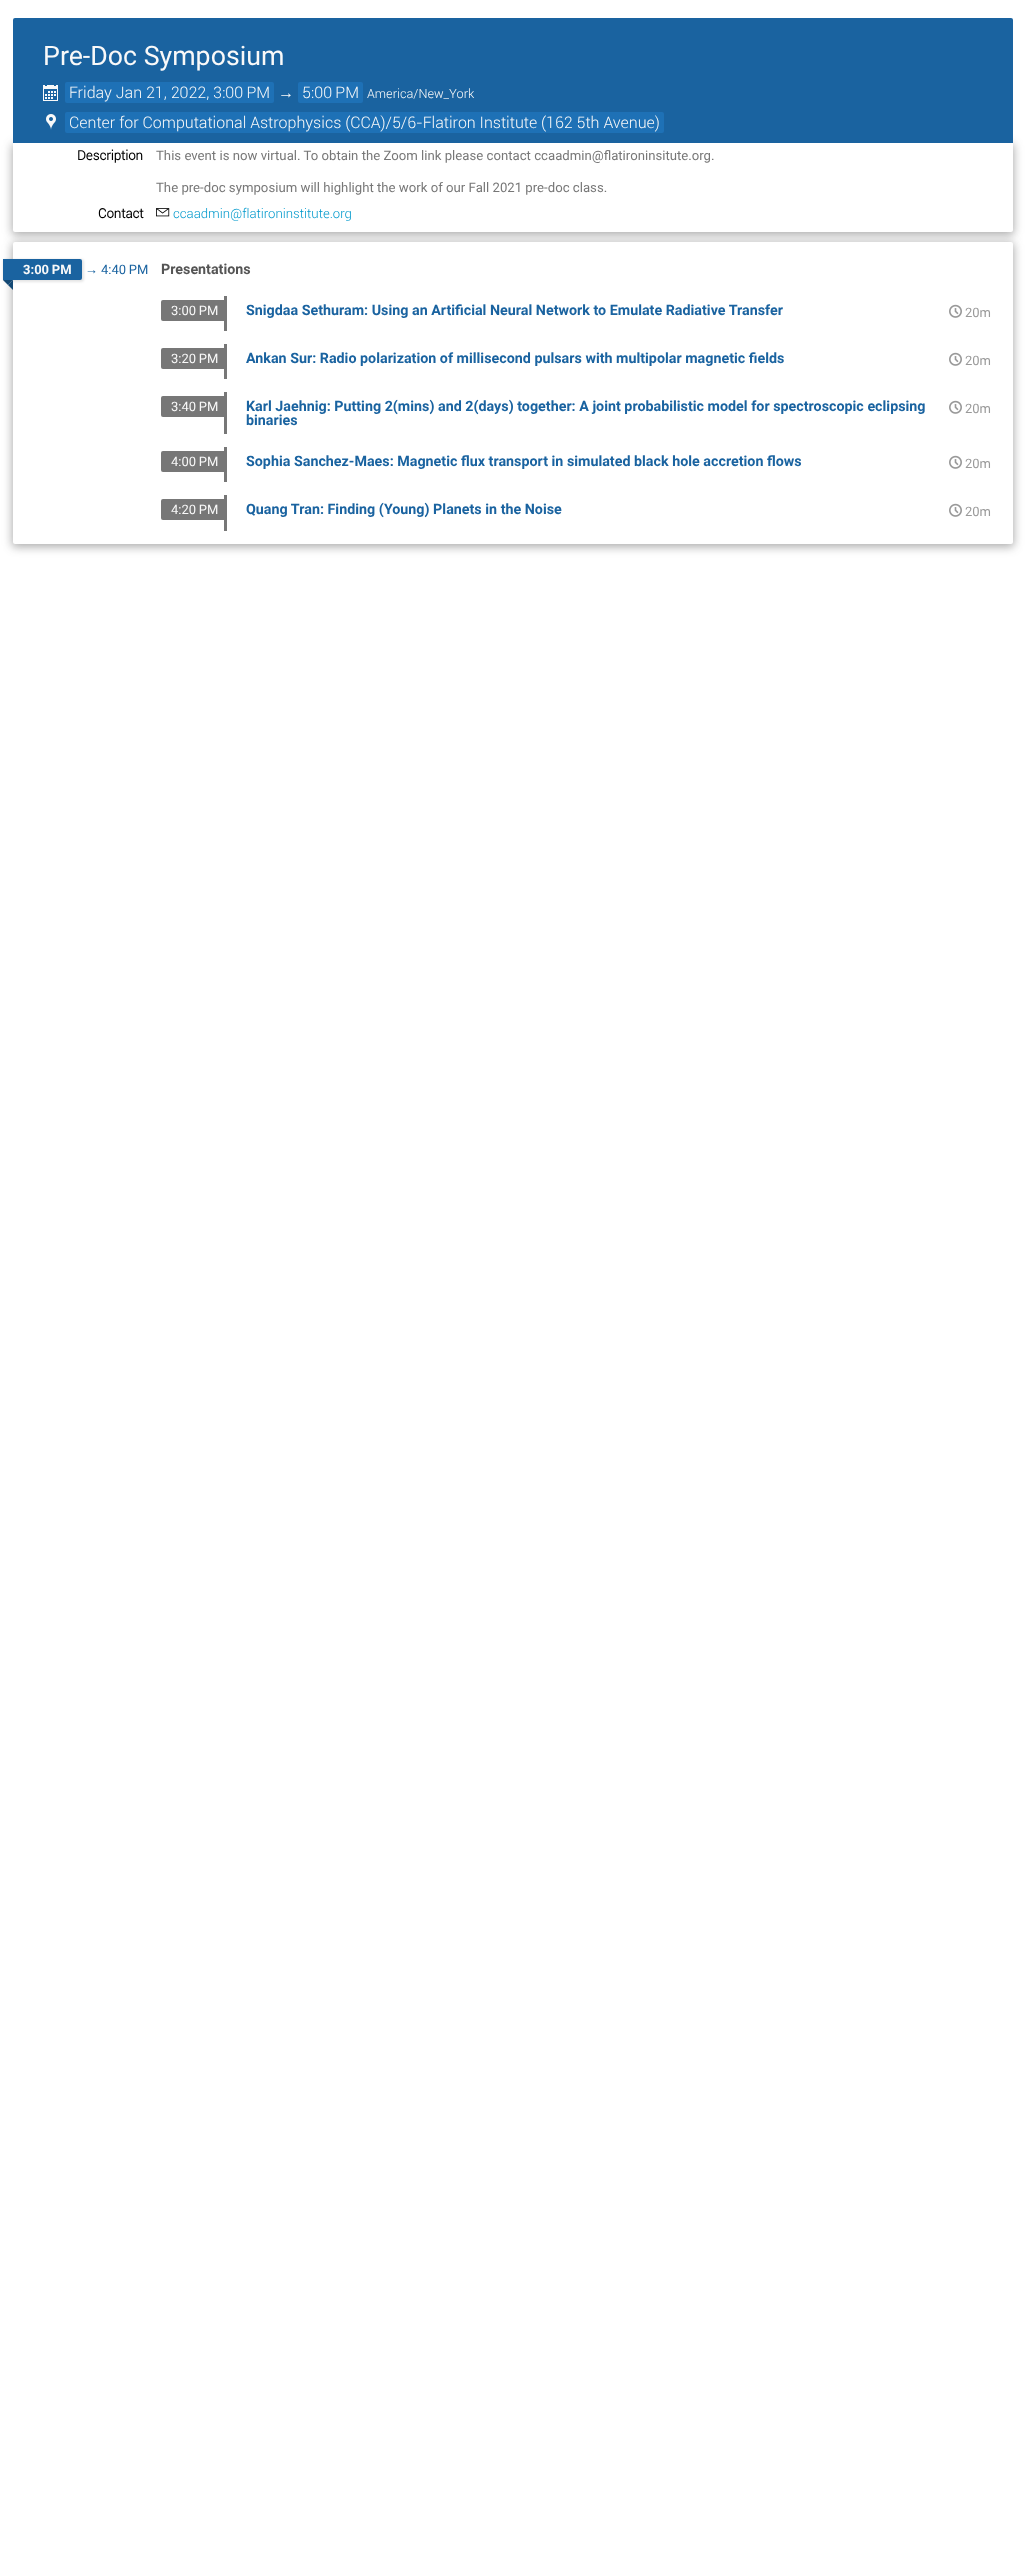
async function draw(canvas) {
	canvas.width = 1026;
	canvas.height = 2554;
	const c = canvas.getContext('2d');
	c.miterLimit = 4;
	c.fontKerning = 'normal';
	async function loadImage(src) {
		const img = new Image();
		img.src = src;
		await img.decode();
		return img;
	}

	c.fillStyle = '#fff';
	c.fillRect(0, 0, 1026, 2554);
	c.fillStyle = '#32323266';
	c.filter = 'blur(5px)';
	c.beginPath();
	c.roundRect(12, 144, 1002, 91, 3);
	c.fill();
	c.filter = 'none';
	c.fillStyle = '#1a63a0';
	c.beginPath();
	c.roundRect(13, 18, 1000, 125, [2, 2, 0, 0]);
	c.fill();
	c.font = '26.75px Roboto';
	c.fillStyle = '#f9f9f9';
	c.fillText('Pre-Doc Symposium', 43, 65);
	c.drawImage(await loadImage('img1.png'), 43, 85, 15, 16);
	c.fillStyle = '#1e71b6';
	c.beginPath();
	c.roundRect(65, 82, 209, 21, 2);
	c.fill();
	c.font = '300 16px Roboto';
	c.fillStyle = '#f9f9f9';
	c.fillText('Friday Jan 21, 2022, 3:00 PM', 69, 98);
	c.font = '16px Liberation Sans';
	c.fillText('→', 278, 98);
	c.fillStyle = '#1e71b6';
	c.beginPath();
	c.roundRect(298, 82, 65, 21, 2);
	c.fill();
	c.font = '300 16px Roboto';
	c.fillStyle = '#f9f9f9';
	c.fillText('5:00 PM', 302, 98);
	c.font = '300 12.75px Roboto';
	c.fillText('America/New_York', 367, 98);
	c.drawImage(await loadImage('img2.png'), 46, 114, 10, 16);
	c.fillStyle = '#1e71b6';
	c.beginPath();
	c.roundRect(65, 112, 599, 21, 2);
	c.fill();
	c.font = '300 16px Roboto';
	c.fillStyle = '#f9f9f9';
	c.fillText('Center for Computational Astrophysics (CCA)/5/6-Flatiron Institute (162 5th Avenue)', 69, 128);
	c.fillStyle = '#fff';
	c.beginPath();
	c.roundRect(13, 143, 1000, 89, [0, 0, 2, 2]);
	c.fill();
	c.font = 'bold 13.2px Roboto';
	c.fillStyle = '#000';
	c.fillText('Description', 77, 160);
	c.font = '13.2px Roboto';
	c.fillStyle = '#777';
	c.fillText('This event is now virtual. To obtain the Zoom link please contact ccaadmin@flatironinsitute.org.', 156, 160);
	c.fillText('The pre-doc symposium will highlight the work of our Fall 2021 pre-doc class.', 156, 192);
	c.font = 'bold 13.2px Roboto';
	c.fillStyle = '#000';
	c.fillText('Contact', 98, 218);
	c.drawImage(await loadImage('img3.png'), 156, 208, 14, 9);
	c.font = '300 13.2px Roboto';
	c.fillStyle = '#09c';
	c.fillText('ccaadmin@flatironinstitute.org', 173, 218);
	c.fillStyle = '#32323266';
	c.filter = 'blur(5px)';
	c.beginPath();
	c.roundRect(12, 243, 1002, 304, 3);
	c.fill();
	c.filter = 'none';
	c.fillStyle = '#fff';
	c.beginPath();
	c.roundRect(13, 242, 1000, 302, 2);
	c.fill();
	c.fillStyle = '#0000001a';
	c.filter = 'blur(1px)';
	c.beginPath();
	c.roundRect(3, 259, 81, 23, 3);
	c.fill();
	c.filter = 'none';
	c.fillStyle = '#1a63a0';
	c.beginPath();
	c.roundRect(3, 259, 79, 21, [0, 2, 2, 0]);
	c.fill();
	c.font = 'bold 13px "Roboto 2"';
	c.fillStyle = '#f9f9f9';
	c.fillText('3:00 PM', 23, 274);
	c.fillStyle = '#134874';
	c.beginPath();
	c.moveTo(3, 280);
	c.lineTo(13, 280);
	c.lineTo(8, 285);
	c.closePath();
	c.fill();
	c.beginPath();
	c.moveTo(13, 280);
	c.lineTo(13, 290);
	c.lineTo(8, 285);
	c.closePath();
	c.fill();
	c.font = '13px Liberation Sans';
	c.fillStyle = '#1a63a0';
	c.fillText('→', 85, 274);
	c.font = '13px Roboto';
	c.fillText('4:40 PM', 101, 274);
	c.font = 'bold 14.3px "Roboto 2"';
	c.fillStyle = '#555';
	c.fillText('Presentations', 161, 274);
	c.fillStyle = '#777';
	c.fillRect(224, 296, 3, 35);
	c.beginPath();
	c.roundRect(161, 300, 63, 21, [2, 0, 0, 2]);
	c.fill();
	c.font = '13px Roboto';
	c.fillStyle = '#f9f9f9';
	c.fillText('3:00 PM', 171, 315);
	c.font = 'bold 14.3px "Roboto 2"';
	c.fillStyle = '#1a63a0';
	c.fillText('Snigdaa Sethuram: Using an Artificial Neural Network to Emulate Radiative Transfer', 246, 315);
	c.drawImage(await loadImage('img4.png'), 949, 304, 13, 14);
	c.font = '13px Roboto';
	c.fillStyle = '#999';
	c.fillText('20m', 965, 317);
	c.fillStyle = '#777';
	c.fillRect(224, 344, 3, 35);
	c.beginPath();
	c.roundRect(161, 348, 63, 21, [2, 0, 0, 2]);
	c.fill();
	c.fillStyle = '#f9f9f9';
	c.fillText('3:20 PM', 171, 363);
	c.font = 'bold 14.3px "Roboto 2"';
	c.fillStyle = '#1a63a0';
	c.fillText('Ankan Sur: Radio polarization of millisecond pulsars with multipolar magnetic fields', 246, 363);
	c.drawImage(await loadImage('img4.png'), 949, 352, 13, 14);
	c.font = '13px Roboto';
	c.fillStyle = '#999';
	c.fillText('20m', 965, 365);
	c.fillStyle = '#777';
	c.fillRect(224, 392, 3, 42);
	c.beginPath();
	c.roundRect(161, 396, 63, 21, [2, 0, 0, 2]);
	c.fill();
	c.fillStyle = '#f9f9f9';
	c.fillText('3:40 PM', 171, 411);
	c.font = 'bold 14.3px "Roboto 2"';
	c.fillStyle = '#1a63a0';
	c.fillText('Karl Jaehnig: Putting 2(mins) and 2(days) together: A joint probabilistic model for spectroscopic eclipsing', 246, 411);
	c.fillText('binaries', 246, 425);
	c.drawImage(await loadImage('img4.png'), 949, 400, 13, 14);
	c.font = '13px Roboto';
	c.fillStyle = '#999';
	c.fillText('20m', 965, 413);
	c.fillStyle = '#777';
	c.fillRect(224, 447, 3, 35);
	c.beginPath();
	c.roundRect(161, 451, 63, 21, [2, 0, 0, 2]);
	c.fill();
	c.fillStyle = '#f9f9f9';
	c.fillText('4:00 PM', 171, 466);
	c.font = 'bold 14.3px "Roboto 2"';
	c.fillStyle = '#1a63a0';
	c.fillText('Sophia Sanchez-Maes: Magnetic flux transport in simulated black hole accretion flows', 246, 466);
	c.drawImage(await loadImage('img4.png'), 949, 455, 13, 14);
	c.font = '13px Roboto';
	c.fillStyle = '#999';
	c.fillText('20m', 965, 468);
	c.fillStyle = '#777';
	c.fillRect(224, 495, 3, 36);
	c.beginPath();
	c.roundRect(161, 499, 63, 21, [2, 0, 0, 2]);
	c.fill();
	c.fillStyle = '#f9f9f9';
	c.fillText('4:20 PM', 171, 514);
	c.font = 'bold 14.3px "Roboto 2"';
	c.fillStyle = '#1a63a0';
	c.fillText('Quang Tran: Finding (Young) Planets in the Noise', 246, 514);
	c.drawImage(await loadImage('img4.png'), 949, 503, 13, 14);
	c.font = '13px Roboto';
	c.fillStyle = '#999';
	c.fillText('20m', 965, 516);
}

draw(document.querySelector('canvas'));
